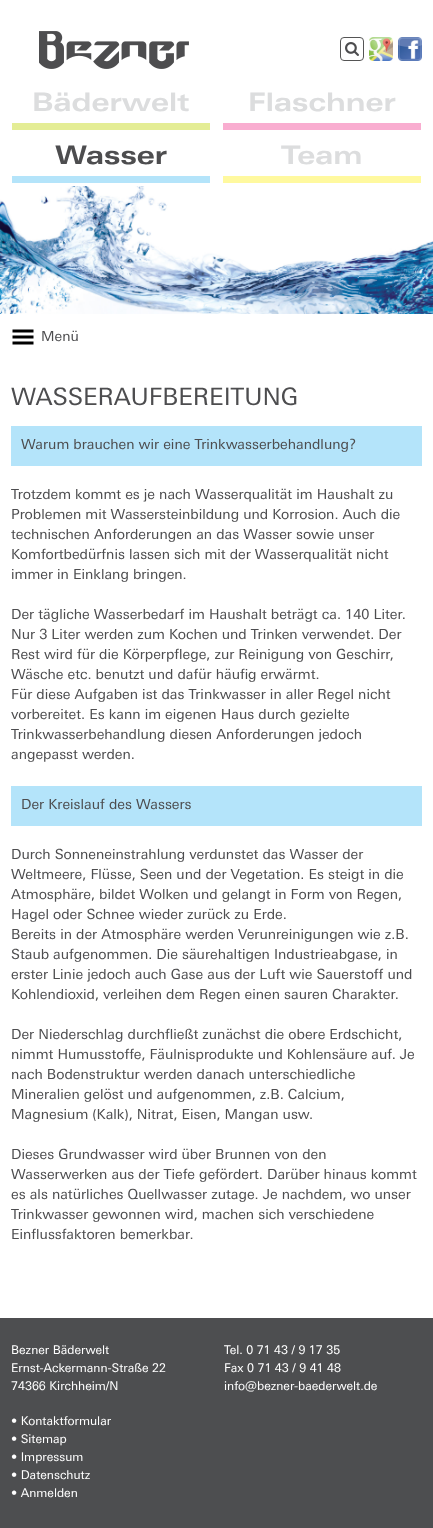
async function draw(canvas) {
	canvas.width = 433;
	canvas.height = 1528;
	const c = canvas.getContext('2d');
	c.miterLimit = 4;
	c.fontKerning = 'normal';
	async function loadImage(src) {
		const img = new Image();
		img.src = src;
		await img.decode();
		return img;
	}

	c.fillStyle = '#4d4e50';
	c.fillRect(0, 0, 433, 1528);
	c.fillStyle = '#fff';
	c.fillRect(0, 0, 433, 1318);
	c.drawImage(await loadImage('img1.png'), 39, 31, 150, 38);
	c.beginPath();
	c.roundRect(340.5, 37.5, 23, 23, 3.5);
	c.strokeStyle = '#555';
	c.stroke();
	c.drawImage(await loadImage('img2.png'), 345, 42, 14, 14);
	c.drawImage(await loadImage('img3.png'), 369, 37, 24, 24);
	c.drawImage(await loadImage('img4.png'), 398, 37, 24, 24);
	c.font = 'bold 25.5px "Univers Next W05"';
	c.fillStyle = '#dcddde';
	c.fillText('Bäderwelt', 32, 111);
	c.fillStyle = '#e4ed95';
	c.fillRect(12, 123, 198, 7);
	c.fillStyle = '#dcddde';
	c.fillText('Flaschner', 248, 111);
	c.fillStyle = '#f9add0';
	c.fillRect(223, 123, 198, 7);
	c.fillStyle = '#4d4d4f';
	c.fillText('Wasser', 55, 164);
	c.fillStyle = '#b4e4fa';
	c.fillRect(12, 176, 198, 7);
	c.fillStyle = '#dcddde';
	c.fillText('Team', 281, 164);
	c.fillStyle = '#fff99f';
	c.fillRect(223, 176, 198, 7);
	c.drawImage(await loadImage('img5.png'), 0, 186, 433, 128);
	c.drawImage(await loadImage('img6.png'), 12, 329, 22, 16);
	c.font = '14px "Univers Next W05"';
	c.fillStyle = '#4d4d4f';
	c.fillText('Menü', 41, 341);
	c.font = '24px "Univers Next W05"';
	c.fillText('WASSERAUFBEREITUNG', 11, 405);
	c.fillStyle = '#b4e4fa';
	c.fillRect(11, 426, 411, 40);
	c.font = '14px "Univers Next W05"';
	c.fillStyle = '#4d4d4f';
	for (const [text, x, y] of [
		['Warum brauchen wir eine Trinkwasserbehandlung?', 21, 449],
		['Trotzdem kommt es je nach Wasserqualität im Haushalt zu', 11, 499],
		['Problemen mit Wassersteinbildung und Korrosion. Auch die', 11, 519],
		['technischen Anforderungen an das Wasser sowie unser', 11, 539],
		['Komfortbedürfnis lassen sich mit der Wasserqualität nicht', 11, 559],
		['immer in Einklang bringen.', 11, 579],
		['Der tägliche Wasserbedarf im Haushalt beträgt ca. 140 Liter.', 11, 619],
		['Nur 3 Liter werden zum Kochen und Trinken verwendet. Der', 11, 639],
		['Rest wird für die Körperpflege, zur Reinigung von Geschirr,', 11, 659],
		['Wäsche etc. benutzt und dafür häufig erwärmt.', 11, 679],
		['Für diese Aufgaben ist das Trinkwasser in aller Regel nicht', 11, 699],
		['vorbereitet. Es kann im eigenen Haus durch gezielte', 11, 719],
		['Trinkwasserbehandlung diesen Anforderungen jedoch', 11, 739],
		['angepasst werden.', 11, 759],
	]) {
		c.fillText(text, x, y);
	}
	c.fillStyle = '#b4e4fa';
	c.fillRect(11, 786, 411, 40);
	c.fillStyle = '#4d4d4f';
	for (const [text, x, y] of [
		['Der Kreislauf des Wassers', 21, 809],
		['Durch Sonneneinstrahlung verdunstet das Wasser der', 11, 859],
		['Weltmeere, Flüsse, Seen und der Vegetation. Es steigt in die', 11, 879],
		['Atmosphäre, bildet Wolken und gelangt in Form von Regen,', 11, 899],
		['Hagel oder Schnee wieder zurück zu Erde.', 11, 919],
		['Bereits in der Atmosphäre werden Verunreinigungen wie z.B.', 11, 939],
		['Staub aufgenommen. Die säurehaltigen Industrieabgase, in', 11, 959],
		['erster Linie jedoch auch Gase aus der Luft wie Sauerstoff und', 11, 979],
		['Kohlendioxid, verleihen dem Regen einen sauren Charakter.', 11, 999],
		['Der Niederschlag durchfließt zunächst die obere Erdschicht,', 11, 1039],
		['nimmt Humusstoffe, Fäulnisprodukte und Kohlensäure auf. Je', 11, 1059],
		['nach Bodenstruktur werden danach unterschiedliche', 11, 1079],
		['Mineralien gelöst und aufgenommen, z.B. Calcium,', 11, 1099],
		['Magnesium (Kalk), Nitrat, Eisen, Mangan usw.', 11, 1119],
		['Dieses Grundwasser wird über Brunnen von den', 11, 1159],
		['Wasserwerken aus der Tiefe gefördert. Darüber hinaus kommt', 11, 1179],
		['es als natürliches Quellwasser zutage. Je nachdem, wo unser', 11, 1199],
		['Trinkwasser gewonnen wird, machen sich verschiedene', 11, 1219],
		['Einflussfaktoren bemerkbar.', 11, 1239],
	]) {
		c.fillText(text, x, y);
	}
	c.font = '12px "Univers Next W05"';
	c.fillStyle = '#fff';
	for (const [text, x, y] of [
		['Bezner Bäderwelt', 11, 1354],
		['Ernst-Ackermann-Straße 22', 11, 1372],
		['74366 Kirchheim/N', 11, 1390],
		['Tel. 0 71 43 / 9 17 35', 224, 1354],
		['Fax 0 71 43 / 9 41 48', 224, 1372],
		['info@bezner-baederwelt.de', 224, 1390],
		['• Kontaktformular', 11, 1425],
		['• Sitemap', 11, 1443],
		['• Impressum', 11, 1461],
		['• Datenschutz', 11, 1479],
		['• Anmelden', 11, 1497],
	]) {
		c.fillText(text, x, y);
	}
}

draw(document.querySelector('canvas'));
